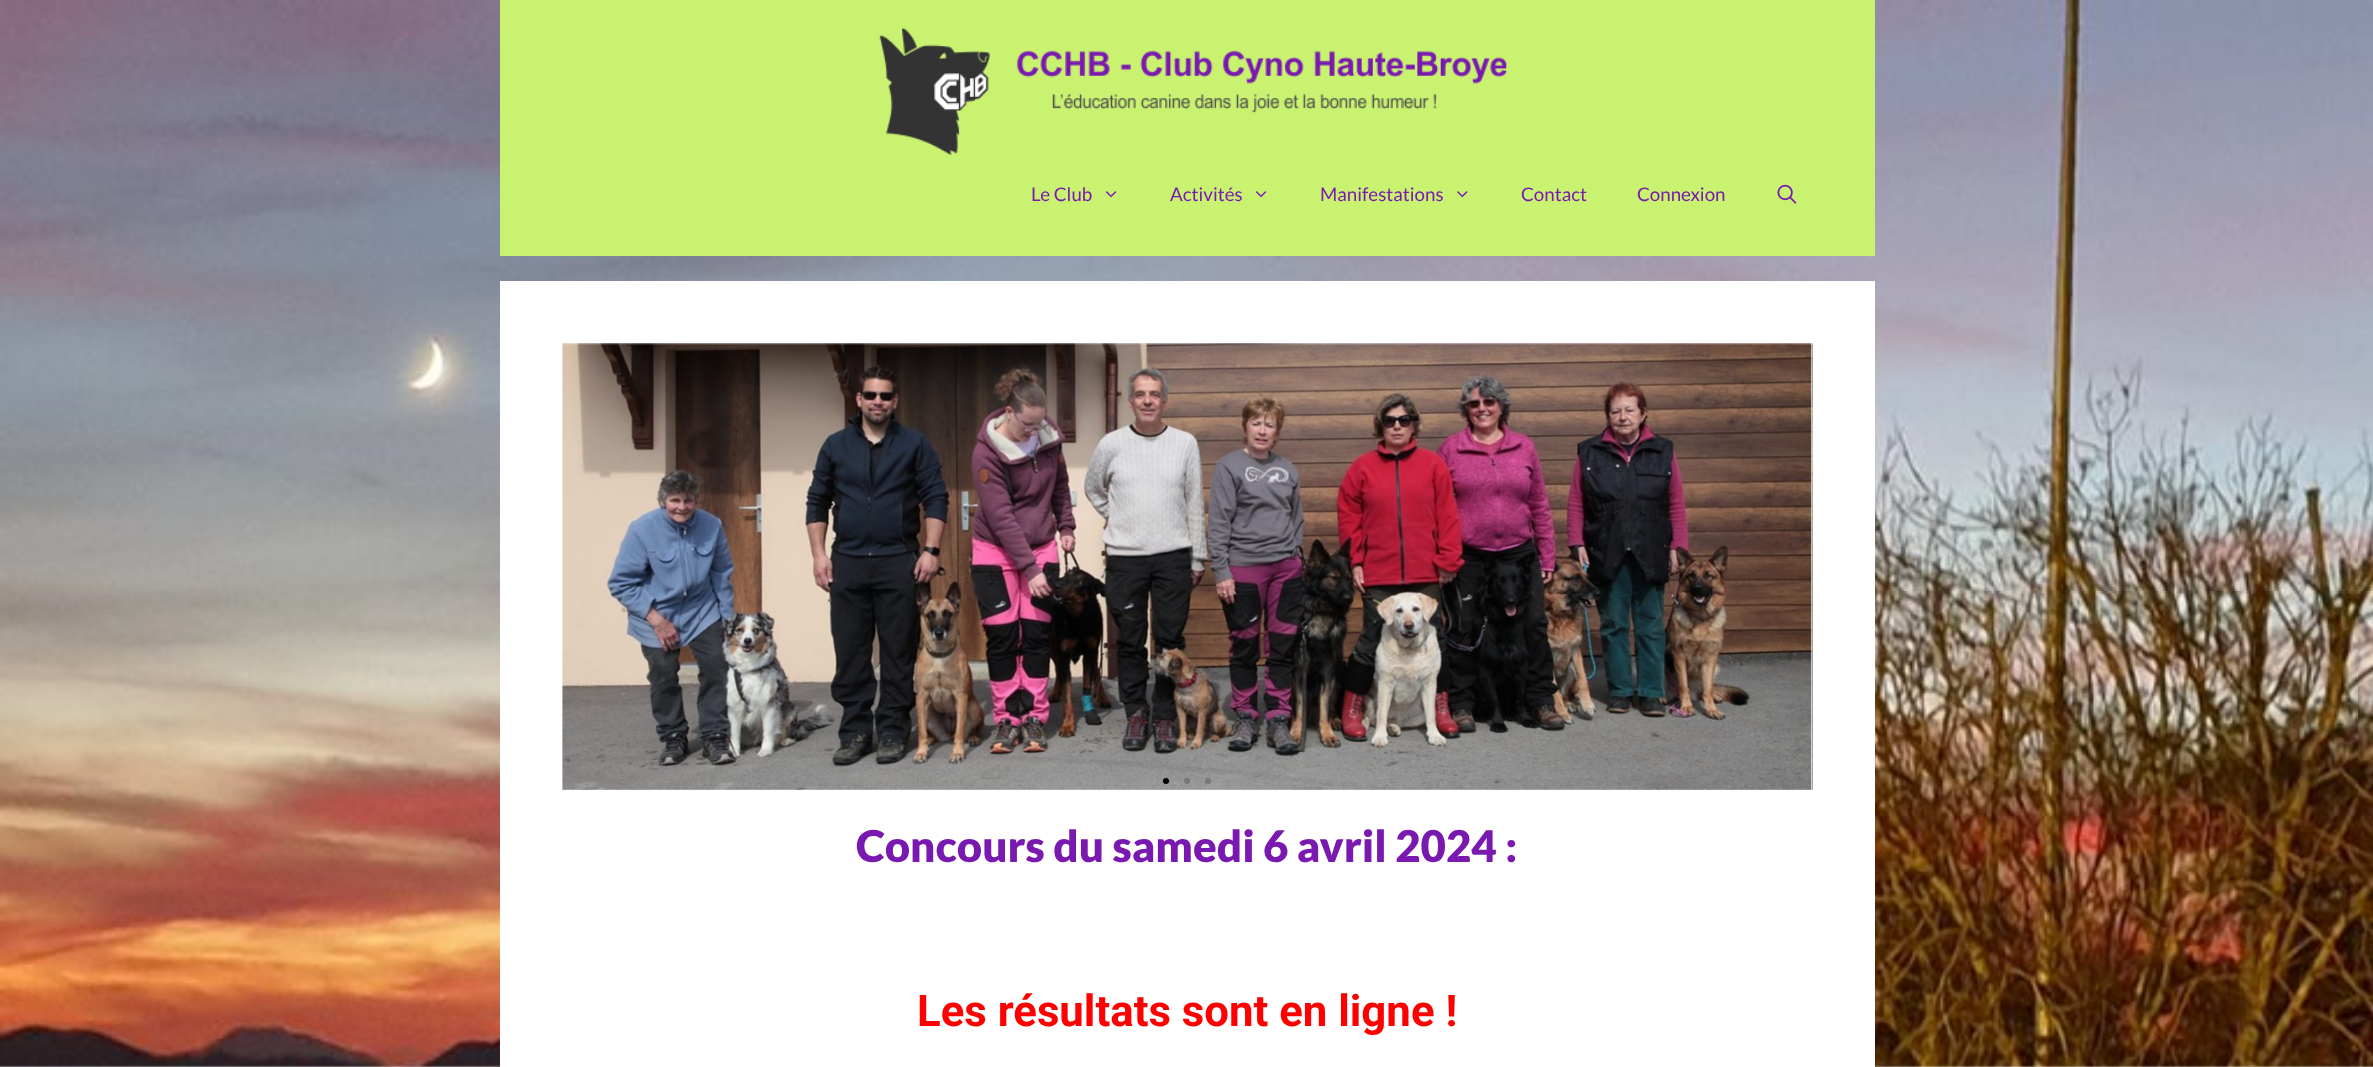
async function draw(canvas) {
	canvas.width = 2373;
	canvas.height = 1067;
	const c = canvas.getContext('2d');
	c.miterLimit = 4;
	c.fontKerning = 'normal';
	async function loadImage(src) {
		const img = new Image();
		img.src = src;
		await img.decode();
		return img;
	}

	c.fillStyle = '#fff';
	c.fillRect(0, 0, 2373, 1067);
	c.drawImage(await loadImage('img1.png'), 0, 0, 2373, 1067);
	c.fillStyle = '#c9f271';
	c.fillRect(500, 0, 1375, 256);
	c.drawImage(await loadImage('img2.png'), 879, 27, 628, 129);
	c.font = '18.75px Lato';
	c.fillStyle = '#7919b0';
	c.fillText('Le Club', 1031, 201);
	c.drawImage(await loadImage('img3.png'), 1105, 191, 12, 7);
	c.fillText('Activités', 1170, 201);
	c.drawImage(await loadImage('img3.png'), 1255, 191, 12, 7);
	c.fillText('Manifestations', 1320, 201);
	c.drawImage(await loadImage('img4.png'), 1457, 191, 11, 7);
	c.fillText('Contact', 1521, 201);
	c.fillText('Connexion', 1637, 201);
	c.drawImage(await loadImage('img5.png'), 1777, 184, 20, 20);
	c.fillStyle = '#fff';
	c.fillRect(500, 281, 1375, 786);
	c.drawImage(await loadImage('img6.png'), 562, 343, 1250, 447);
	c.drawImage(await loadImage('img7.png'), 1812, 343, 1, 447);
	c.fillStyle = '#000';
	c.beginPath();
	c.arc(1166, 781, 3, 0, 2 * Math.PI);
	c.fill();
	c.fillStyle = '#00000033';
	c.beginPath();
	c.arc(1187, 781, 3, 0, 2 * Math.PI);
	c.fill();
	c.beginPath();
	c.arc(1208, 781, 3, 0, 2 * Math.PI);
	c.fill();
	c.font = '900 43.75px Lato';
	c.fillStyle = '#7919b0';
	c.fillText('Concours du samedi 6 avril 2024 :', 856, 862);
	c.font = 'bold 43.75px Roboto';
	c.fillStyle = '#f00';
	c.fillText('Les résultats sont en ligne !', 917, 1026);
}

draw(document.querySelector('canvas'));
